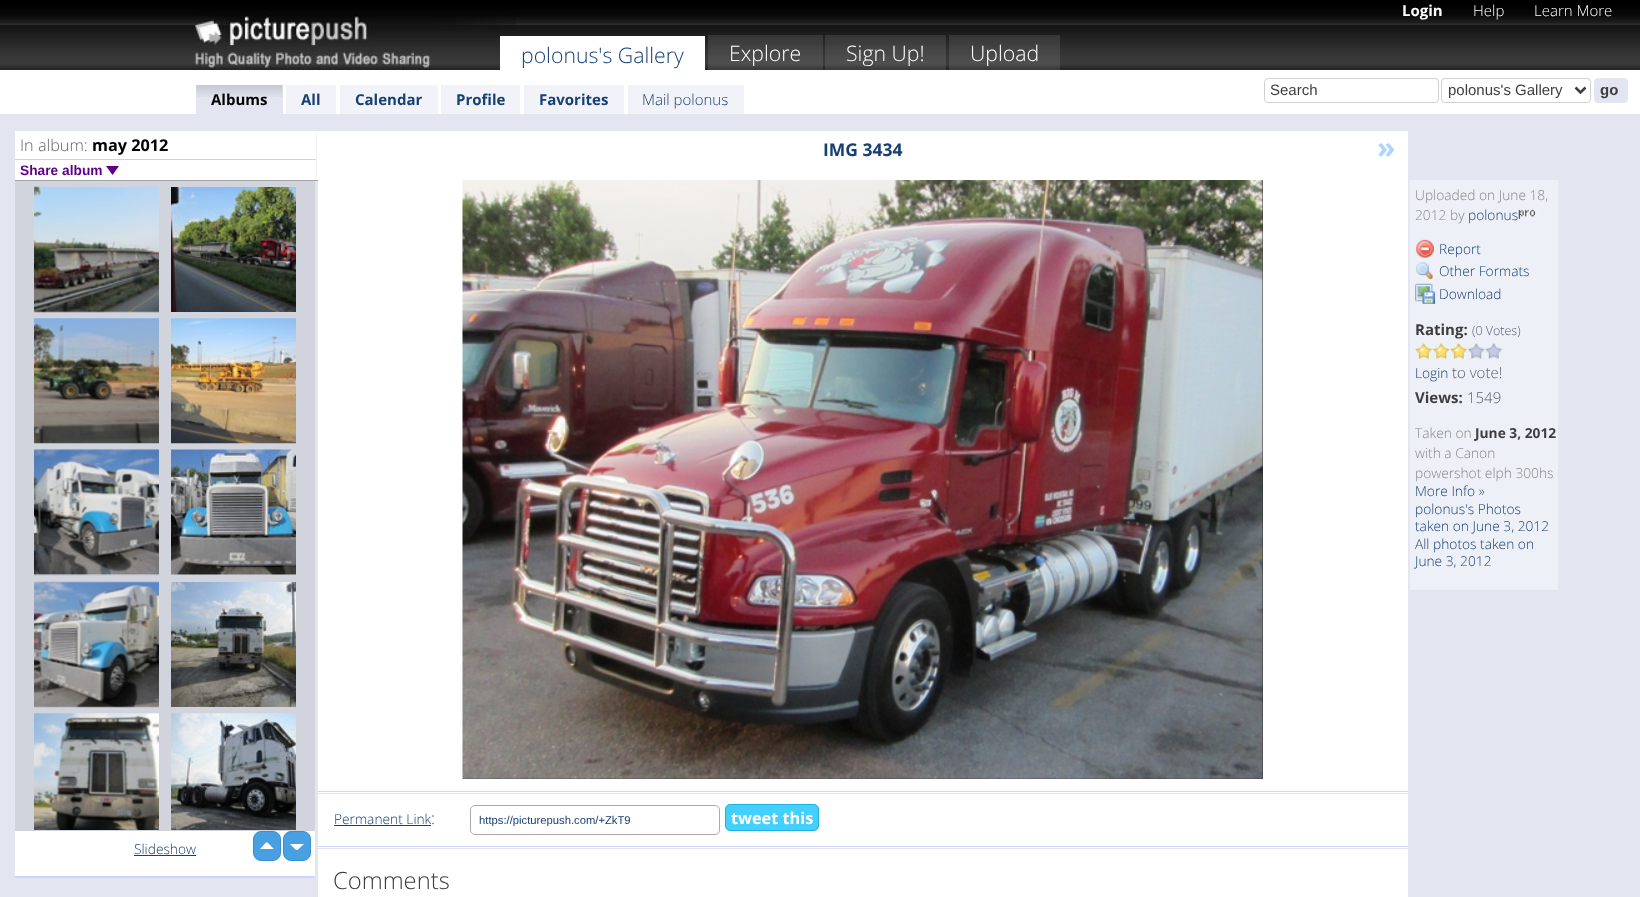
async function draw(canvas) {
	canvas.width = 1640;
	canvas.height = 897;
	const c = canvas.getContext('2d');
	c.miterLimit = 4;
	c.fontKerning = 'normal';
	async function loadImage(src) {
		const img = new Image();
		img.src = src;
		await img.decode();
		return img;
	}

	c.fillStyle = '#e3e6f1';
	c.fillRect(0, 0, 1640, 897);
	c.drawImage(await loadImage('img1.png'), 0, 0, 1640, 70);
	c.drawImage(await loadImage('img2.png'), 195, 13, 321, 57);
	c.fillStyle = '#fff';
	c.fillRect(500, 36, 205, 34);
	c.font = '300 21.25px Open Sans';
	c.fillStyle = '#163f73';
	c.fillText('polonus\'s Gallery', 521, 63);
	c.fillStyle = '#ffffff1a';
	c.fillRect(708, 35, 115, 35);
	c.fillStyle = '#fff';
	c.fillText('Explore', 729, 61);
	c.fillStyle = '#ffffff1a';
	c.fillRect(825, 35, 121, 35);
	c.fillStyle = '#fff';
	c.fillText('Sign Up!', 846, 61);
	c.fillStyle = '#ffffff1a';
	c.fillRect(949, 35, 111, 35);
	c.fillStyle = '#fff';
	c.fillText('Upload', 970, 61);
	c.font = 'bold 15px Open Sans';
	c.fillText('Login', 1402, 16);
	c.font = '300 15px Open Sans';
	c.fillText('Help', 1473, 16);
	c.fillText('Learn More', 1534, 16);
	c.fillRect(0, 70, 1640, 44);
	c.beginPath();
	c.roundRect(1264.5, 78.5, 174, 24, 3.5);
	c.strokeStyle = '#d0d0d0';
	c.stroke();
	c.font = '15px Liberation Sans';
	c.fillStyle = '#3e3e41';
	c.fillText('Search', 1270, 95);
	c.beginPath();
	c.roundRect(1441.5, 78.5, 149, 24, 3.5);
	c.stroke();
	c.beginPath();
	c.moveTo(1575.5, 87.5);
	c.lineTo(1580.5, 92.5);
	c.lineTo(1585.5, 87.5);
	c.strokeStyle = '#3e3e3e';
	c.lineWidth = 2.5;
	c.stroke();
	c.fillText('polonus\'s Gallery', 1448, 95);
	c.fillStyle = '#e3e6f1';
	c.beginPath();
	c.roundRect(1594.5, 78.5, 33, 24, 3.5);
	c.fill();
	c.strokeStyle = '#e3e6f1';
	c.lineWidth = 1;
	c.stroke();
	c.font = 'bold 15px Liberation Sans';
	c.fillStyle = '#3e3e41';
	c.fillText('go', 1600, 95);
	c.fillStyle = '#e3e6f1';
	c.fillRect(196, 85, 87, 29);
	c.drawImage(await loadImage('img3.png'), 196, 85, 87, 12);
	c.font = 'bold 15px Open Sans';
	c.fillStyle = '#000';
	c.fillText('Albums', 211, 105);
	c.fillStyle = '#f1f3f9';
	c.fillRect(286, 85, 50, 29);
	c.fillStyle = '#163f73';
	c.fillText('All', 301, 105);
	c.fillStyle = '#f1f3f9';
	c.fillRect(340, 85, 98, 29);
	c.fillStyle = '#163f73';
	c.fillText('Calendar', 355, 105);
	c.fillStyle = '#f1f3f9';
	c.fillRect(441, 85, 79, 29);
	c.fillStyle = '#163f73';
	c.fillText('Profile', 456, 105);
	c.fillStyle = '#f1f3f9';
	c.fillRect(524, 85, 100, 29);
	c.fillStyle = '#163f73';
	c.fillText('Favorites', 539, 105);
	c.fillStyle = '#f1f3f9';
	c.fillRect(628, 85, 116, 29);
	c.font = '300 15px Open Sans';
	c.fillStyle = '#163f73';
	c.fillText('Mail polonus', 642, 105);
	for (const [x, y, w, h, color] of [
		[15, 131, 303, 49, '#fff'],
		[316, 131, 1, 50, '#f3f3f3'],
		[15, 180, 303, 1, '#a4a4a4'],
	]) {
		c.fillStyle = color;
		c.fillRect(x, y, w, h);
	}
	c.font = '300 16.25px Open Sans';
	c.fillStyle = '#666';
	c.fillText('In album:', 20, 151);
	c.font = 'bold 16.25px Open Sans';
	c.fillStyle = '#000';
	c.fillText('may 2012', 92, 151);
	c.fillStyle = '#d0d0e0';
	c.fillRect(15, 159, 301, 1);
	c.font = 'bold 13.75px Liberation Sans';
	c.fillStyle = '#5e0085';
	c.fillText('Share album', 20, 175);
	c.beginPath();
	c.moveTo(106, 166);
	c.lineTo(119, 166);
	c.lineTo(112.5, 175);
	c.closePath();
	c.fill();
	c.fillStyle = '#d1d4dd';
	c.fillRect(15, 181, 300, 697);
	c.fillStyle = '#cfd4ff';
	c.fillRect(15, 876, 300, 1);
	c.drawImage(await loadImage('img4.png'), 34, 186, 125, 127);
	c.drawImage(await loadImage('img5.png'), 171, 187, 125, 125);
	c.drawImage(await loadImage('img6.png'), 34, 318, 125, 126);
	c.drawImage(await loadImage('img7.png'), 171, 318, 125, 126);
	c.drawImage(await loadImage('img8.png'), 34, 449, 125, 127);
	c.drawImage(await loadImage('img9.png'), 171, 449, 125, 126);
	c.drawImage(await loadImage('img10.png'), 34, 581, 125, 127);
	c.drawImage(await loadImage('img11.png'), 171, 582, 125, 125);
	c.drawImage(await loadImage('img12.png'), 34, 713, 125, 117);
	c.drawImage(await loadImage('img13.png'), 171, 713, 125, 117);
	c.fillStyle = '#fff';
	c.fillRect(15, 831, 300, 45);
	c.fillStyle = '#48a0e3';
	c.beginPath();
	c.roundRect(253.5, 831.5, 27, 29, 7.5);
	c.fill();
	c.strokeStyle = '#3890d3';
	c.stroke();
	c.beginPath();
	c.roundRect(283.5, 831.5, 27, 29, 7.5);
	c.fill();
	c.stroke();
	c.fillStyle = '#fff';
	c.beginPath();
	c.moveTo(274, 849);
	c.lineTo(260, 849);
	c.lineTo(266, 842.5);
	c.lineTo(267.5, 842.5);
	c.closePath();
	c.moveTo(290, 844);
	c.lineTo(304, 844);
	c.lineTo(297.5, 850);
	c.lineTo(296, 850);
	c.closePath();
	c.fill();
	c.font = '300 13.75px Open Sans';
	c.fillStyle = '#163f73';
	c.fillText('Slideshow', 134, 854);
	for (const [x, y, w, h, color] of [
		[134, 855, 62, 1, '#163f73'],
		[318, 131, 1090, 662, '#fff'],
		[318, 791, 1090, 1, '#cfd4ff'],
	]) {
		c.fillStyle = color;
		c.fillRect(x, y, w, h);
	}
	c.font = 'bold 17.5px Open Sans';
	c.fillStyle = '#163f73';
	c.fillText('IMG 3434', 823, 156);
	c.font = 'bold 30px Open Sans';
	c.fillStyle = '#b0d4fe';
	c.fillText('»', 1377, 158);
	c.fillStyle = '#333';
	c.fillRect(463, 180, 800, 599);
	c.drawImage(await loadImage('img14.png'), 462, 180, 801, 599);
	c.fillStyle = '#eef0f7';
	c.fillRect(1410, 180, 148, 410);
	c.font = '300 13.75px Open Sans';
	c.fillStyle = '#888';
	c.fillText('Uploaded on June 18,', 1415, 200);
	c.fillText('2012 by', 1415, 220);
	c.fillStyle = '#163f73';
	c.fillText('polonus', 1468, 220);
	c.drawImage(await loadImage('img15.png'), 1518, 209, 19, 10);
	c.drawImage(await loadImage('img16.png'), 1416, 239, 18, 19);
	c.fillText('Report', 1439, 254);
	c.drawImage(await loadImage('img17.png'), 1416, 262, 17, 18);
	c.fillText('Other Formats', 1439, 276);
	c.drawImage(await loadImage('img18.png'), 1415, 283, 20, 21);
	c.fillText('Download', 1439, 299);
	c.font = 'bold 15px Open Sans';
	c.fillStyle = '#3e3e41';
	c.fillText('Rating:', 1415, 335);
	c.font = '300 12.5px Open Sans';
	c.fillStyle = '#5a5c6c';
	c.fillText('(0 Votes)', 1472, 335);
	c.drawImage(await loadImage('img19.png'), 1415, 342, 18, 17);
	c.drawImage(await loadImage('img20.png'), 1432, 342, 18, 17);
	c.drawImage(await loadImage('img19.png'), 1450, 342, 18, 17);
	c.drawImage(await loadImage('img21.png'), 1467, 343, 18, 16);
	c.drawImage(await loadImage('img22.png'), 1485, 343, 18, 16);
	c.font = '300 13.75px Open Sans';
	c.fillStyle = '#163f73';
	c.fillText('Login', 1415, 378);
	c.font = '300 15px Open Sans';
	c.fillStyle = '#5a5c6c';
	c.fillText('to vote!', 1452, 378);
	c.font = 'bold 15px Open Sans';
	c.fillStyle = '#3e3e41';
	c.fillText('Views:', 1415, 403);
	c.font = '300 15px Open Sans';
	c.fillStyle = '#5a5c6c';
	c.fillText('1549', 1467, 403);
	c.font = '300 13.75px Open Sans';
	c.fillStyle = '#888';
	c.fillText('Taken on', 1415, 438);
	c.font = 'bold 13.75px Open Sans';
	c.fillStyle = '#3e3e41';
	c.fillText('June 3, 2012', 1475, 438);
	c.font = '300 13.75px Open Sans';
	c.fillStyle = '#888';
	c.fillText('with a Canon', 1415, 458);
	c.fillText('powershot elph 300hs', 1415, 478);
	c.fillStyle = '#163f73';
	for (const [text, x, y] of [
		['More Info »', 1415, 496],
		['polonus\'s Photos', 1415, 514],
		['taken on June 3, 2012', 1415, 531],
		['All photos taken on', 1415, 549],
		['June 3, 2012', 1415, 566],
	]) {
		c.fillText(text, x, y);
	}
	c.fillStyle = '#fff';
	c.fillRect(318, 794, 1090, 54);
	c.fillStyle = '#cfd4ff';
	c.fillRect(318, 846, 1090, 1);
	c.fillStyle = '#163f73';
	c.fillText('Permanent Link', 334, 824);
	c.fillRect(334, 825, 97, 1);
	c.font = '300 16.25px Open Sans';
	c.fillStyle = '#3e3e41';
	c.fillText(':', 431, 824);
	c.beginPath();
	c.roundRect(470.5, 805.5, 249, 29, 4.5);
	c.strokeStyle = '#aaa';
	c.stroke();
	c.save();
	c.beginPath();
	c.rect(479, 814, 232, 12);
	c.clip();
	c.font = '11.25px Liberation Sans';
	c.fillStyle = '#163f73';
	c.fillText('https://picturepush.com/+ZkT9', 479, 824);
	c.restore();
	c.fillStyle = '#42d0ff';
	c.beginPath();
	c.roundRect(725.5, 804.5, 93, 26, 4.5);
	c.fill();
	c.strokeStyle = '#22b0df';
	c.stroke();
	c.font = 'bold 16.25px Open Sans';
	c.fillStyle = '#fff';
	c.fillText('tweet this', 731, 824);
	c.fillRect(318, 849, 1090, 48);
	c.font = '300 23.75px Open Sans';
	c.fillStyle = '#3e3e41';
	c.fillText('Comments', 333, 889);
}

draw(document.querySelector('canvas'));
